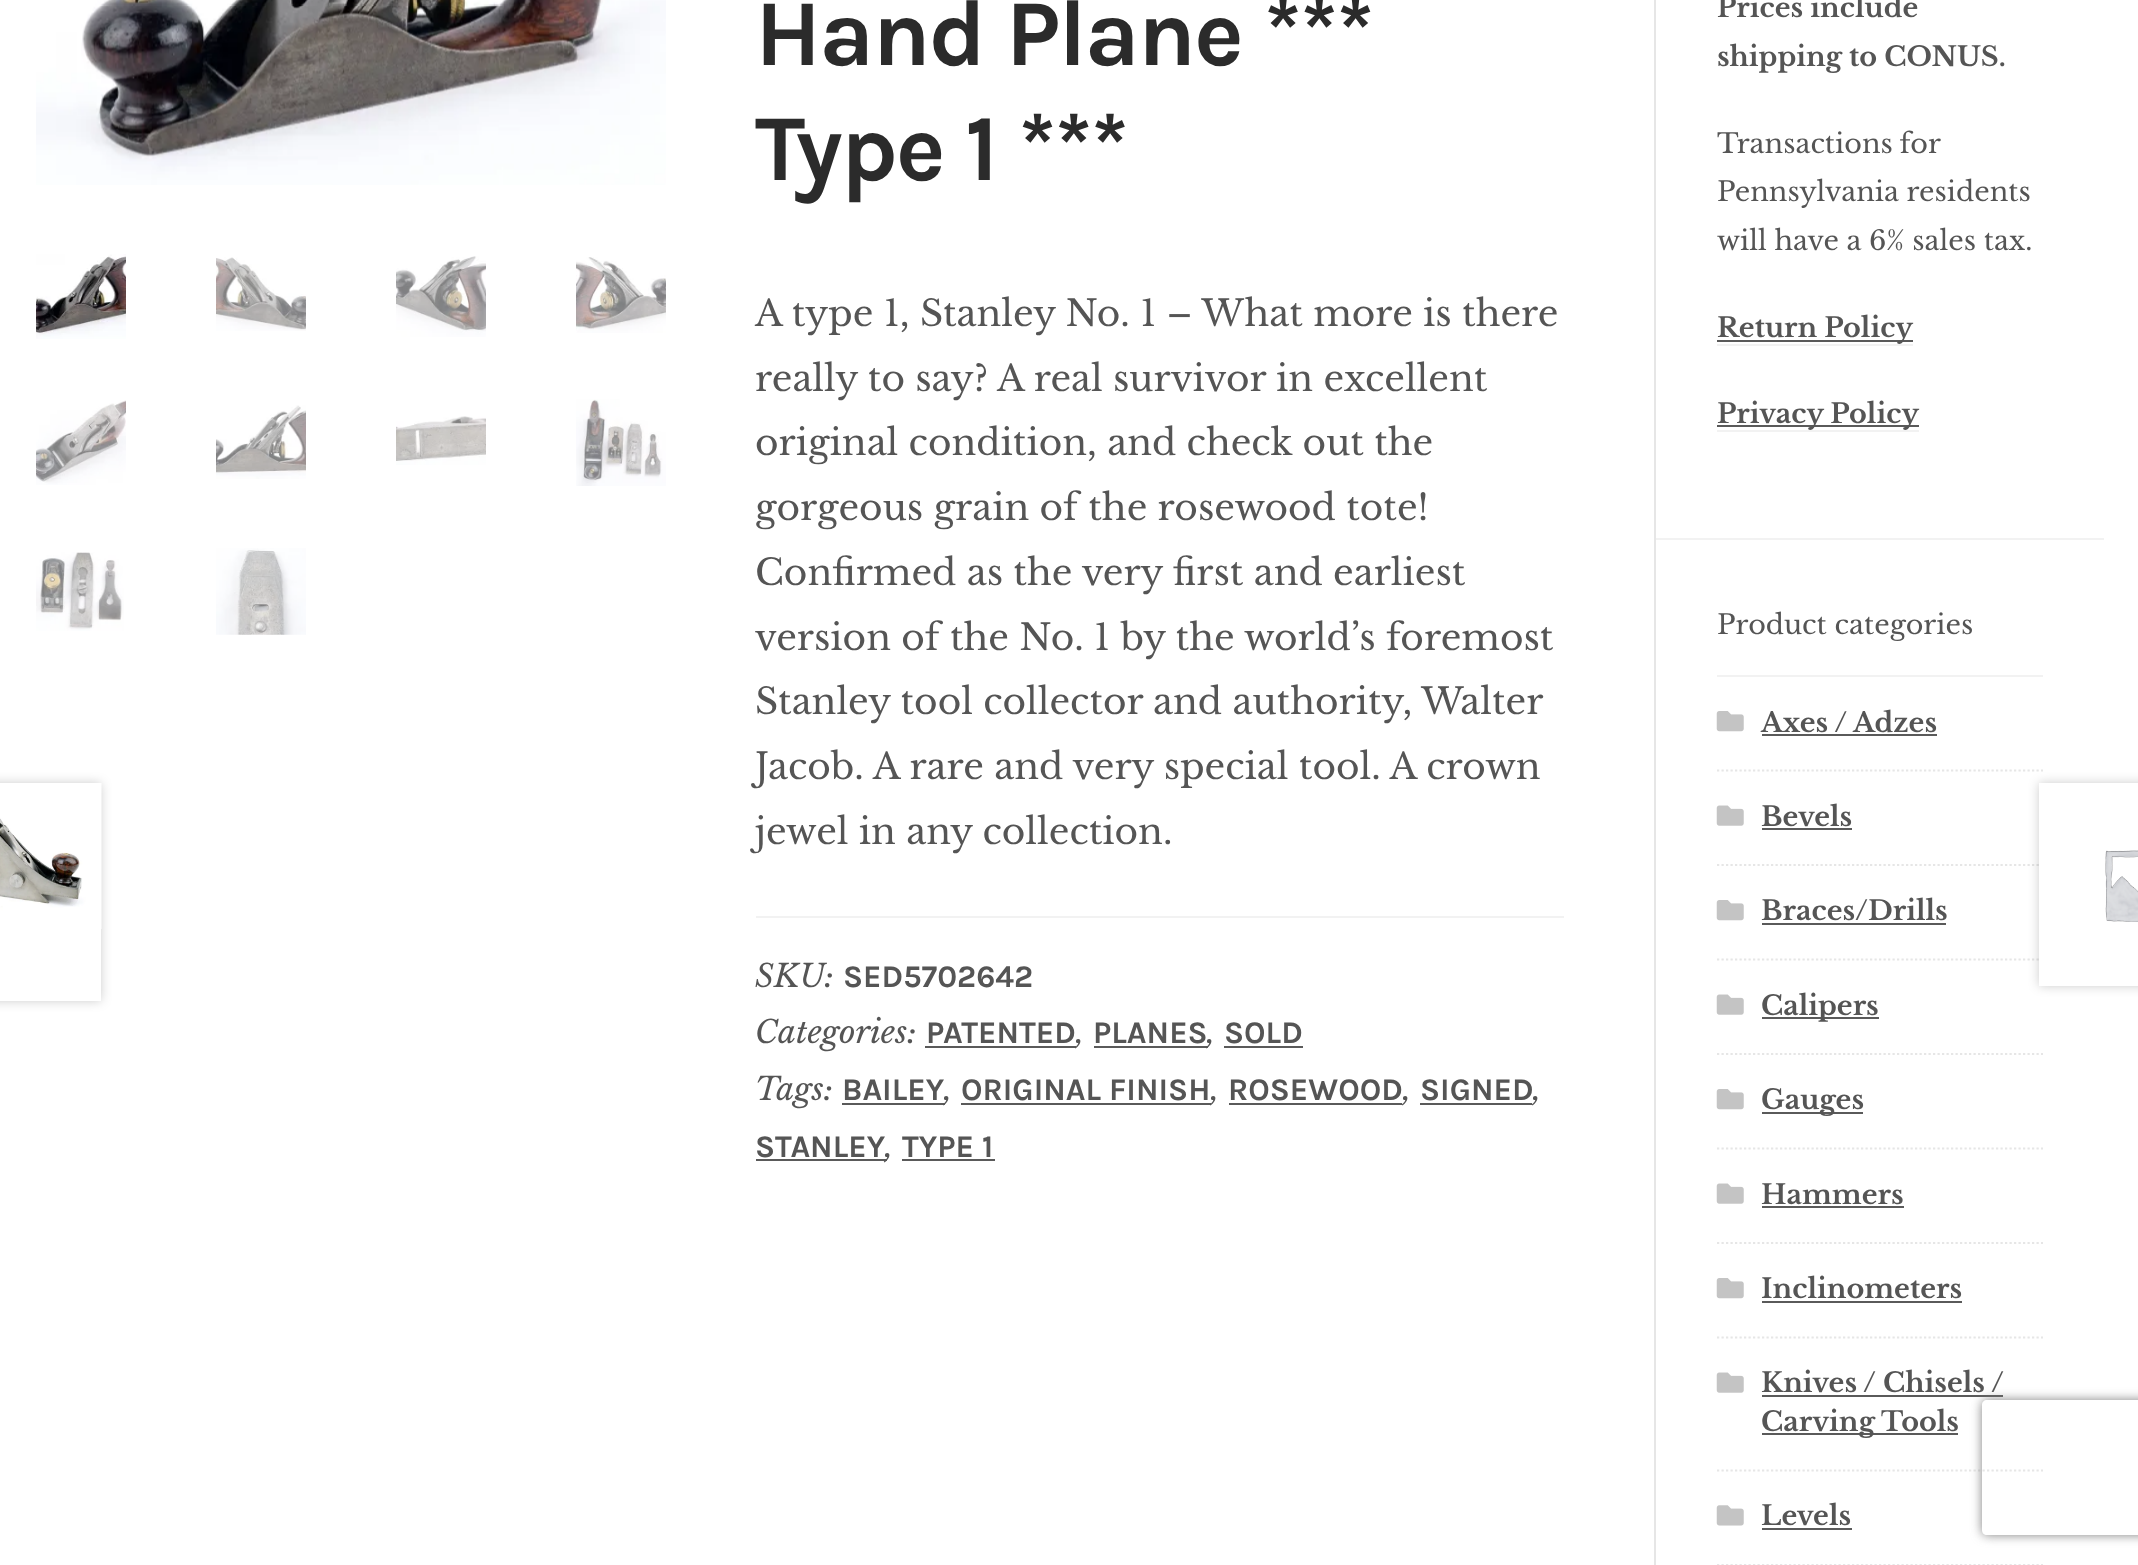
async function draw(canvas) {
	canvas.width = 2138;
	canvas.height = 1565;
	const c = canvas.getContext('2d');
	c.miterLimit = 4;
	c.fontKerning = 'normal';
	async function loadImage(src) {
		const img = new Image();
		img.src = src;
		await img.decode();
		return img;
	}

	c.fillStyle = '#fff';
	c.fillRect(0, 0, 2138, 1565);
	c.drawImage(await loadImage('img1.png'), 36, 0, 630, 185);
	c.drawImage(await loadImage('img2.png'), 36, 254, 90, 85);
	c.drawImage(await loadImage('img3.png'), 216, 257, 90, 74);
	c.drawImage(await loadImage('img4.png'), 396, 256, 90, 81);
	c.drawImage(await loadImage('img5.png'), 576, 257, 90, 76);
	c.drawImage(await loadImage('img6.png'), 36, 400, 90, 85);
	c.drawImage(await loadImage('img7.png'), 216, 405, 90, 74);
	c.drawImage(await loadImage('img8.png'), 396, 416, 90, 49);
	c.drawImage(await loadImage('img9.png'), 576, 399, 90, 87);
	c.drawImage(await loadImage('img10.png'), 36, 552, 88, 79);
	c.drawImage(await loadImage('img11.png'), 216, 548, 90, 87);
	c.letterSpacing = '-2.25px';
	c.font = 'bold 94.25px Karla';
	c.fillStyle = '#2b2b2b';
	c.fillText('Hand Plane ***', 755, 65);
	c.fillText('Type 1 ***', 755, 180);
	c.letterSpacing = '0px';
	c.font = '36px Libre Baskerville';
	c.fillStyle = '#555';
	for (const [text, x, y] of [
		['A type 1, Stanley No. 1 – What more is there', 755, 326],
		['really to say?', 755, 391],
		['A real survivor in excellent', 997, 391],
		['original condition, and check out the', 755, 455],
		['gorgeous grain of the rosewood tote!', 755, 520],
		['Confirmed as the very first and earliest', 755, 585],
		['version of the No. 1 by the world’s foremost', 755, 650],
		['Stanley tool collector and authority, Walter', 755, 714],
		['Jacob. A rare and very special tool. A crown', 755, 779],
		['jewel in any collection.', 755, 844],
	]) {
		c.fillText(text, x, y);
	}
	c.fillStyle = '#f2f2f2';
	c.fillRect(756, 916, 808, 2);
	c.font = 'italic 31.5px Libre Baskerville';
	c.fillStyle = '#555';
	c.fillText('SKU:', 755, 987);
	c.font = 'bold 31.5px Karla';
	c.fillText('SED5702642', 843, 987);
	c.font = 'italic 31.5px Libre Baskerville';
	c.fillText('Categories:', 755, 1043);
	c.font = 'bold 31.5px Karla';
	c.fillText('PATENTED', 926, 1043);
	c.fillStyle = '#5a5a5a';
	c.fillRect(925, 1046, 151, 2);
	c.font = 'italic 31.5px Libre Baskerville';
	c.fillStyle = '#555';
	c.fillText(',', 1076, 1043);
	c.font = 'bold 31.5px Karla';
	c.fillText('PLANES', 1093, 1043);
	c.fillStyle = '#5a5a5a';
	c.fillRect(1094, 1046, 114, 2);
	c.font = 'italic 31.5px Libre Baskerville';
	c.fillStyle = '#555';
	c.fillText(',', 1207, 1043);
	c.font = 'bold 31.5px Karla';
	c.fillText('SOLD', 1224, 1043);
	c.fillStyle = '#5a5a5a';
	c.fillRect(1224, 1046, 79, 2);
	c.font = 'italic 31.5px Libre Baskerville';
	c.fillStyle = '#555';
	c.fillText('Tags:', 755, 1100);
	c.font = 'bold 31.5px Karla';
	c.fillText('BAILEY', 842, 1100);
	c.fillStyle = '#5a5a5a';
	c.fillRect(842, 1103, 103, 2);
	c.font = 'italic 31.5px Libre Baskerville';
	c.fillStyle = '#555';
	c.fillText(',', 944, 1100);
	c.font = 'bold 31.5px Karla';
	c.fillText('ORIGINAL FINISH', 961, 1100);
	c.fillStyle = '#5a5a5a';
	c.fillRect(961, 1103, 250, 2);
	c.font = 'italic 31.5px Libre Baskerville';
	c.fillStyle = '#555';
	c.fillText(',', 1211, 1100);
	c.font = 'bold 31.5px Karla';
	c.fillText('ROSEWOOD', 1228, 1100);
	c.fillStyle = '#5a5a5a';
	c.fillRect(1229, 1103, 173, 2);
	c.font = 'italic 31.5px Libre Baskerville';
	c.fillStyle = '#555';
	c.fillText(',', 1403, 1100);
	c.font = 'bold 31.5px Karla';
	c.fillText('SIGNED', 1420, 1100);
	c.fillStyle = '#5a5a5a';
	c.fillRect(1420, 1103, 112, 2);
	c.font = 'italic 31.5px Libre Baskerville';
	c.fillStyle = '#555';
	c.fillText(',', 1533, 1100);
	c.font = 'bold 31.5px Karla';
	c.fillText('STANLEY', 755, 1157);
	c.fillStyle = '#5a5a5a';
	c.fillRect(756, 1159, 131, 2);
	c.font = 'italic 31.5px Libre Baskerville';
	c.fillStyle = '#555';
	c.fillText(',', 885, 1157);
	c.font = 'bold 31.5px Karla';
	c.fillText('TYPE 1', 902, 1157);
	c.fillStyle = '#5a5a5a';
	c.fillRect(902, 1159, 93, 2);
	c.save();
	c.beginPath();
	c.moveTo(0, 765);
	c.lineTo(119, 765);
	c.lineTo(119, 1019);
	c.lineTo(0, 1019);
	c.closePath();
	c.moveTo(-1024, 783);
	c.lineTo(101, 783);
	c.lineTo(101, 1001);
	c.lineTo(-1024, 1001);
	c.closePath();
	c.clip('evenodd');
	c.fillStyle = '#00000033';
	c.filter = 'blur(5.5px)';
	c.beginPath();
	c.rect(-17, 783, 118, 218);
	c.fill();
	c.filter = 'none';
	c.restore();
	c.drawImage(await loadImage('img12.png'), 0, 783, 102, 146);
	c.beginPath();
	c.moveTo(1717, 770.5);
	c.lineTo(2043, 770.5);
	c.strokeStyle = '#e6e6e6';
	c.lineWidth = 2.2;
	c.setLineDash([2.25, 2.25]);
	c.stroke();
	c.beginPath();
	c.moveTo(1717, 865);
	c.lineTo(2043, 865);
	c.stroke();
	c.beginPath();
	c.moveTo(1717, 959.5);
	c.lineTo(2043, 959.5);
	c.stroke();
	c.fillStyle = '#00000033';
	c.filter = 'blur(5.5px)';
	c.beginPath();
	c.rect(2039, 783, 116, 203);
	c.fill();
	c.filter = 'none';
	c.fillStyle = '#fff';
	c.fillRect(2039, 783, 99, 203);
	c.drawImage(await loadImage('img13.png'), 2105, 850, 33, 72);
	c.fillStyle = '#e6e6e6';
	c.beginPath();
	c.moveTo(1654, 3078);
	c.lineTo(1654, -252);
	c.lineTo(1656, -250);
	c.lineTo(1656, 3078);
	c.closePath();
	c.fill();
	c.fillStyle = '#f2f2f2';
	c.fillRect(1656, 538, 448, 2);
	c.font = 'bold 27px Libre Baskerville';
	c.fillStyle = '#555';
	c.fillText('Prices include', 1717, 17);
	c.fillText('shipping to CONUS.', 1717, 66);
	c.wordSpacing = '-1px';
	c.font = '27px Libre Baskerville';
	c.fillText('Transactions for', 1717, 153);
	c.wordSpacing = '0px';
	c.fillText('Pennsylvania residents', 1717, 201);
	c.fillText('will have a 6% sales tax.', 1717, 250);
	c.fillStyle = '#5a5a5a';
	c.fillRect(1717, 340, 196, 2);
	c.font = 'bold 27px Libre Baskerville';
	c.fillStyle = '#555';
	c.fillText('Return Policy', 1717, 337);
	c.fillStyle = '#f2f2f2';
	c.fillRect(1717, 344, 196, 2);
	c.fillStyle = '#5a5a5a';
	c.fillRect(1717, 425, 202, 2);
	c.fillStyle = '#555';
	c.fillText('Privacy Policy', 1717, 423);
	c.fillStyle = '#f2f2f2';
	c.fillRect(1717, 430, 202, 2);
	c.fillRect(1717, 675, 326, 2);
	c.font = '27px Libre Baskerville';
	c.fillStyle = '#555';
	c.fillText('Product categories', 1717, 634);
	c.drawImage(await loadImage('img14.png'), 1716, 711, 28, 21);
	c.font = 'bold 27px Libre Baskerville';
	c.fillText('Axes / Adzes', 1761, 732);
	c.fillStyle = '#5a5a5a';
	c.fillRect(1762, 734, 175, 2);
	c.drawImage(await loadImage('img15.png'), 1716, 805, 28, 21);
	c.fillStyle = '#555';
	c.fillText('Bevels', 1761, 826);
	c.fillStyle = '#5a5a5a';
	c.fillRect(1762, 828, 90, 2);
	c.drawImage(await loadImage('img14.png'), 1716, 900, 28, 21);
	c.fillStyle = '#555';
	c.fillText('Braces/Drills', 1761, 920);
	c.fillStyle = '#5a5a5a';
	c.fillRect(1762, 923, 184, 2);
	c.beginPath();
	c.moveTo(1717, 1054);
	c.lineTo(2043, 1054);
	c.stroke();
	c.drawImage(await loadImage('img15.png'), 1716, 994, 28, 21);
	c.fillRect(1762, 1017, 117, 2);
	c.fillStyle = '#555';
	c.fillText('Calipers', 1761, 1015);
	c.beginPath();
	c.moveTo(1717, 1148.5);
	c.lineTo(2043, 1148.5);
	c.stroke();
	c.drawImage(await loadImage('img14.png'), 1716, 1089, 28, 21);
	c.fillStyle = '#5a5a5a';
	c.fillRect(1762, 1112, 101, 2);
	c.fillStyle = '#555';
	c.fillText('Gauges', 1761, 1109);
	c.beginPath();
	c.moveTo(1717, 1243);
	c.lineTo(2043, 1243);
	c.stroke();
	c.drawImage(await loadImage('img15.png'), 1716, 1183, 28, 21);
	c.fillText('Hammers', 1761, 1204);
	c.fillStyle = '#5a5a5a';
	c.fillRect(1762, 1206, 142, 2);
	c.beginPath();
	c.moveTo(1717, 1337.5);
	c.lineTo(2043, 1337.5);
	c.stroke();
	c.drawImage(await loadImage('img14.png'), 1716, 1278, 28, 21);
	c.fillStyle = '#555';
	c.fillText('Inclinometers', 1761, 1298);
	c.fillStyle = '#5a5a5a';
	c.fillRect(1762, 1301, 200, 2);
	c.beginPath();
	c.moveTo(1717, 1470.5);
	c.lineTo(2043, 1470.5);
	c.stroke();
	c.drawImage(await loadImage('img15.png'), 1716, 1372, 28, 21);
	c.fillStyle = '#555';
	c.fillText('Knives / Chisels /', 1761, 1392);
	c.fillStyle = '#5a5a5a';
	c.fillRect(1762, 1395, 241, 2);
	c.fillRect(1762, 1433, 196, 2);
	c.fillStyle = '#555';
	c.fillText('Carving Tools', 1761, 1431);
	c.beginPath();
	c.moveTo(1717, 1565);
	c.lineTo(2043, 1565);
	c.stroke();
	c.drawImage(await loadImage('img16.png'), 1716, 1505, 28, 21);
	c.fillText('Levels', 1761, 1525);
	c.fillStyle = '#5a5a5a';
	c.fillRect(1762, 1528, 90, 2);
	c.save();
	c.beginPath();
	c.moveTo(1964, 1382);
	c.lineTo(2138, 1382);
	c.lineTo(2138, 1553);
	c.lineTo(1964, 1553);
	c.closePath();
	c.moveTo(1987, 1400);
	c.lineTo(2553, 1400);
	c.bezierCurveTo(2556, 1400, 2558, 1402, 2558, 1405);
	c.lineTo(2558, 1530);
	c.bezierCurveTo(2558, 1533, 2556, 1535, 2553, 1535);
	c.lineTo(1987, 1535);
	c.bezierCurveTo(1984, 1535, 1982, 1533, 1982, 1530);
	c.lineTo(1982, 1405);
	c.bezierCurveTo(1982, 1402, 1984, 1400, 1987, 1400);
	c.closePath();
	c.clip('evenodd');
	c.fillStyle = '#808080';
	c.filter = 'blur(5.5px)';
	c.beginPath();
	c.roundRect(1982, 1400, 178, 135, 5);
	c.fill();
	c.filter = 'none';
	c.restore();
}

draw(document.querySelector('canvas'));
